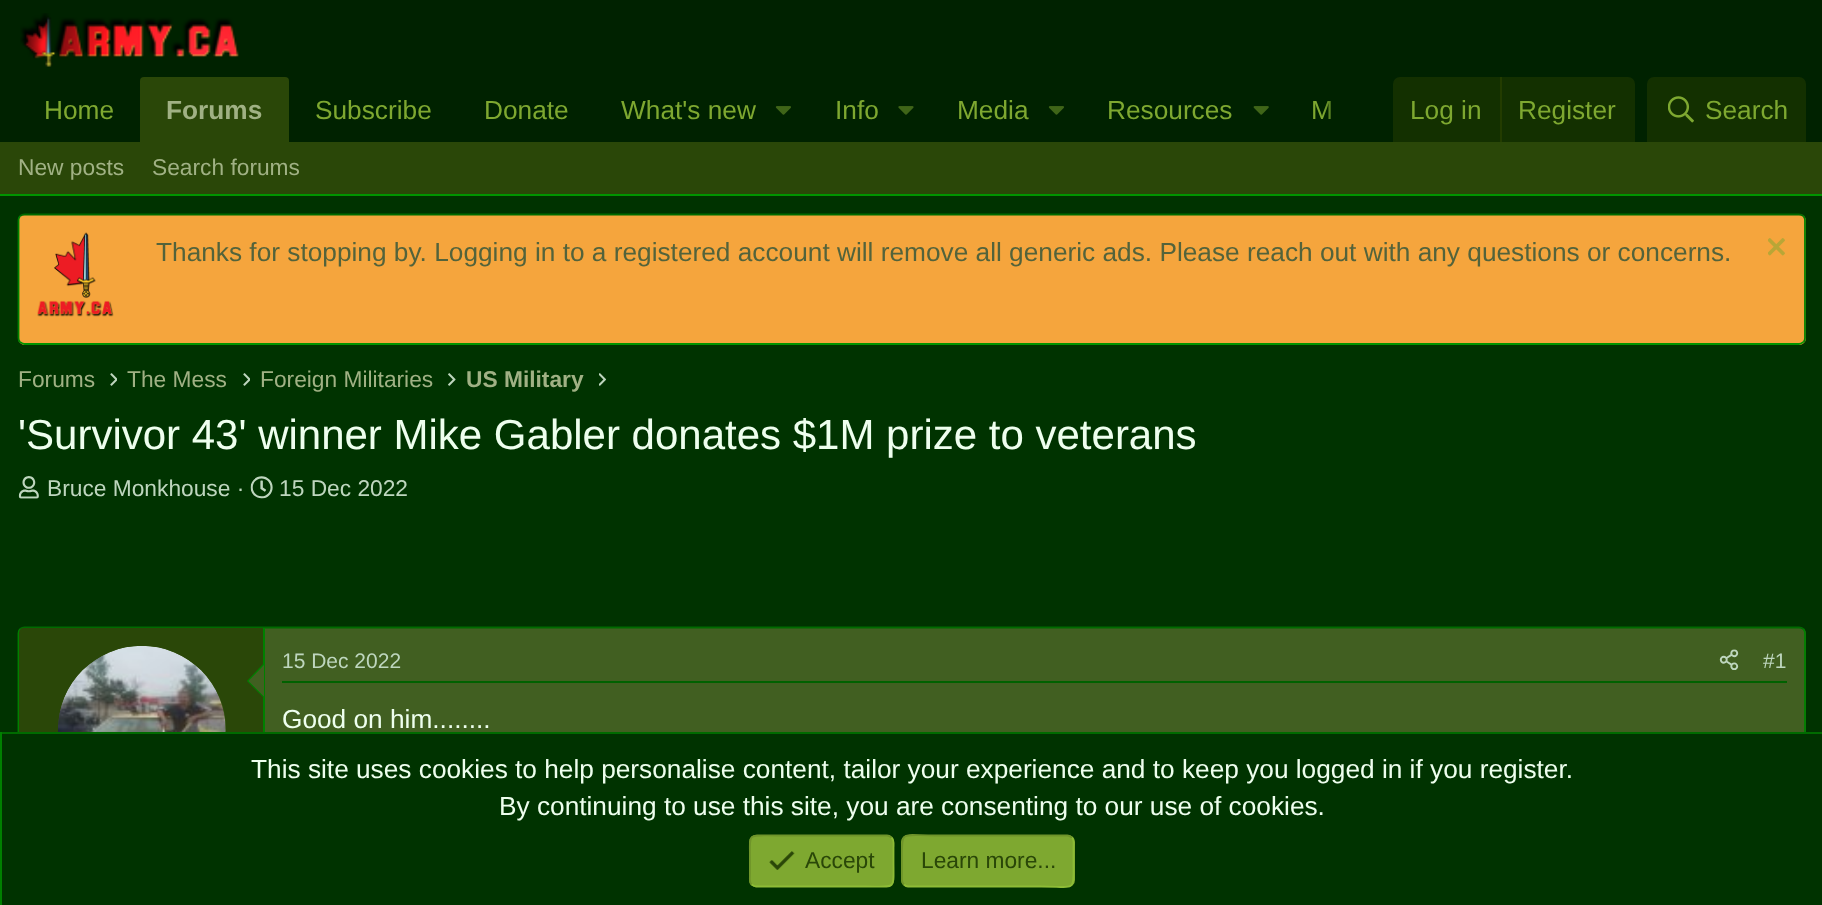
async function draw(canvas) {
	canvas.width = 1822;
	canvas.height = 905;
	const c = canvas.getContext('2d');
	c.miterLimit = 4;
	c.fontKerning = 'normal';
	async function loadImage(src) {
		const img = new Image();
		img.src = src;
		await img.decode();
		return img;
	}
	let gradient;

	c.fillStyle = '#030';
	c.fillRect(0, 0, 1822, 905);
	c.fillStyle = '#020';
	c.fillRect(0, 0, 1822, 142);
	c.drawImage(await loadImage('img1.png'), 20, 13, 219, 54);
	c.font = '26.25px Liberation Sans';
	c.fillStyle = '#7ea830';
	c.fillText('Home', 44, 119);
	c.fillStyle = '#2a4708';
	c.beginPath();
	c.roundRect(140, 77, 149, 65, [4, 4, 0, 0]);
	c.fill();
	c.font = 'bold 26.25px Liberation Sans';
	c.fillStyle = '#a0b184';
	c.fillText('Forums', 166, 119);
	c.font = '26.25px Liberation Sans';
	c.fillStyle = '#7ea830';
	for (const [text, x, y] of [
		['Subscribe', 315, 119],
		['Donate', 484, 119],
		['What\'s new', 621, 119],
	]) {
		c.fillText(text, x, y);
	}
	c.drawImage(await loadImage('img2.png'), 775, 106, 16, 9);
	c.fillText('Info', 835, 119);
	c.drawImage(await loadImage('img3.png'), 898, 106, 16, 9);
	c.fillText('Media', 957, 119);
	c.drawImage(await loadImage('img2.png'), 1048, 106, 16, 9);
	c.fillText('Resources', 1107, 119);
	c.drawImage(await loadImage('img4.png'), 1253, 106, 16, 9);
	c.fillText('M', 1311, 119);
	gradient = c.createLinearGradient(1323, 109, 1393, 109);
	gradient.addColorStop(0, '#00220000');
	gradient.addColorStop(0.33, '#020');
	c.fillStyle = gradient;
	c.fillRect(1323, 100, 8, 19);
	c.fillStyle = '#133000';
	c.beginPath();
	c.roundRect(1393, 77, 242, 65, [7, 7, 0, 0]);
	c.fill();
	c.fillStyle = '#7ea830';
	c.fillText('Log in', 1410, 119);
	c.fillStyle = '#233c00';
	c.fillRect(1500, 77, 2, 65);
	c.fillStyle = '#7ea830';
	c.fillText('Register', 1518, 119);
	c.fillStyle = '#133000';
	c.beginPath();
	c.roundRect(1647, 77, 159, 65, [7, 7, 0, 0]);
	c.fill();
	c.drawImage(await loadImage('img5.png'), 1668, 96, 26, 27);
	c.fillStyle = '#7ea830';
	c.fillText('Search', 1705, 119);
	c.fillStyle = '#2a4708';
	c.fillRect(0, 142, 1822, 52);
	c.fillStyle = '#009400';
	c.fillRect(0, 194, 1822, 2);
	c.font = '22.75px Liberation Sans';
	c.fillStyle = '#a0b184';
	c.fillText('New posts', 18, 175);
	c.fillText('Search forums', 152, 175);
	c.fillStyle = '#f5a53d';
	c.beginPath();
	c.roundRect(18, 214, 1788, 131, 7);
	c.fill();
	c.beginPath();
	c.moveTo(20, 216);
	c.bezierCurveTo(21.5, 215, 23, 214.5, 24.5, 214.5);
	c.lineTo(1799, 214.5);
	c.bezierCurveTo(1800.5, 214.5, 1802, 215, 1803.5, 216);
	c.strokeStyle = '#006b00';
	c.lineWidth = 1.8;
	c.stroke();
	c.beginPath();
	c.moveTo(1803.5, 216);
	c.bezierCurveTo(1804.5, 217.5, 1805, 219, 1805, 220.5);
	c.lineTo(1805, 338);
	c.bezierCurveTo(1805, 339.5, 1804.5, 341, 1803.5, 342);
	c.strokeStyle = '#008000';
	c.stroke();
	c.beginPath();
	c.moveTo(1803.5, 342);
	c.bezierCurveTo(1802, 343, 1800.5, 344, 1799, 344);
	c.lineTo(24.5, 344);
	c.bezierCurveTo(23, 344, 21.5, 343, 20, 342);
	c.strokeStyle = '#009400';
	c.stroke();
	c.beginPath();
	c.moveTo(20, 342);
	c.bezierCurveTo(19, 341, 18.5, 339.5, 18.5, 338);
	c.lineTo(18.5, 220.5);
	c.bezierCurveTo(18.5, 219, 19, 217.5, 20, 216);
	c.strokeStyle = '#008000';
	c.stroke();
	c.drawImage(await loadImage('img6.png'), 37, 232, 77, 85);
	c.font = '26.25px Liberation Sans';
	c.fillStyle = '#53633b';
	c.fillText('Thanks for stopping by. Logging in to a registered account will remove all generic ads. Please reach out with any questions or concerns.', 156, 261);
	c.drawImage(await loadImage('img7.png'), 1768, 238, 17, 18);
	c.font = '22.75px Liberation Sans';
	c.fillStyle = '#a0b184';
	c.fillText('Forums', 18, 387);
	c.drawImage(await loadImage('img8.png'), 110, 373, 7, 13);
	c.fillText('The Mess', 127, 387);
	c.drawImage(await loadImage('img8.png'), 243, 373, 7, 13);
	c.fillText('Foreign Militaries', 260, 387);
	c.drawImage(await loadImage('img9.png'), 448, 373, 8, 13);
	c.font = 'bold 22.75px Liberation Sans';
	c.fillText('US Military', 466, 387);
	c.drawImage(await loadImage('img10.png'), 599, 373, 8, 13);
	c.font = '42px Liberation Sans';
	c.fillStyle = '#efe';
	c.fillText('\'Survivor 43\' winner Mike Gabler donates $1M prize to veterans', 18, 449);
	c.drawImage(await loadImage('img11.png'), 18, 476, 21, 23);
	c.font = '22.75px Liberation Sans';
	c.fillStyle = '#bed6be';
	c.fillText('Bruce Monkhouse ·', 47, 496);
	c.drawImage(await loadImage('img12.png'), 250, 476, 23, 23);
	c.fillText('15 Dec 2022', 279, 496);
	c.fillStyle = '#415f21';
	c.beginPath();
	c.roundRect(18, 627, 1788, 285, 7);
	c.fill();
	c.beginPath();
	c.moveTo(20, 629);
	c.bezierCurveTo(21.5, 628, 23, 627.5, 24.5, 627.5);
	c.lineTo(1799, 627.5);
	c.bezierCurveTo(1800.5, 627.5, 1802, 628, 1803.5, 629);
	c.strokeStyle = '#006b00';
	c.stroke();
	c.beginPath();
	c.moveTo(1803.5, 629);
	c.bezierCurveTo(1804.5, 630.5, 1805, 632, 1805, 633.5);
	c.lineTo(1805, 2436);
	c.bezierCurveTo(1805, 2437.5, 1804.5, 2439, 1803.5, 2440.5);
	c.strokeStyle = '#008000';
	c.stroke();
	c.beginPath();
	c.moveTo(20, 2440.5);
	c.bezierCurveTo(19, 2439, 18.5, 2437.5, 18.5, 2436);
	c.lineTo(18.5, 633.5);
	c.bezierCurveTo(18.5, 632, 19, 630.5, 20, 629);
	c.stroke();
	c.fillStyle = '#2a4708';
	c.beginPath();
	c.moveTo(24, 628);
	c.lineTo(264, 628);
	c.lineTo(264, 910);
	c.lineTo(24, 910);
	c.bezierCurveTo(21, 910, 19, 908, 19, 905);
	c.lineTo(19, 633);
	c.bezierCurveTo(19, 630, 21, 628, 24, 628);
	c.closePath();
	c.fill();
	c.fillStyle = '#008000';
	c.fillRect(263, 628, 2, 104);
	c.fillStyle = '#415f21';
	c.beginPath();
	c.arc(142, 730, 84, 0, 2 * Math.PI);
	c.fill();
	c.drawImage(await loadImage('img13.png'), 58, 646, 168, 86);
	c.fillStyle = '#008000';
	c.beginPath();
	c.moveTo(264, 663);
	c.lineTo(264, 698);
	c.lineTo(247, 681);
	c.closePath();
	c.fill();
	c.fillStyle = '#415f21';
	c.beginPath();
	c.moveTo(264, 665);
	c.lineTo(264, 696.5);
	c.lineTo(248.5, 681);
	c.closePath();
	c.fill();
	c.fillStyle = '#006100';
	c.fillRect(282, 681, 1505, 2);
	c.font = '21px Liberation Sans';
	c.fillStyle = '#bed6be';
	c.fillText('15 Dec 2022', 282, 668);
	c.drawImage(await loadImage('img14.png'), 1719, 649, 20, 21);
	c.fillText('#1', 1763, 668);
	c.font = '26.25px Liberation Sans';
	c.fillStyle = '#efe';
	c.fillText('Good on him........', 282, 728);
	for (const [x, y, w, h, color] of [
		[17, 734, 1789, 171, '#030'],
		[0, 732, 1822, 2, '#006b00'],
		[0, 732, 2, 173, '#008000'],
	]) {
		c.fillStyle = color;
		c.fillRect(x, y, w, h);
	}
	c.fillStyle = '#efe';
	c.fillText('This site uses cookies to help personalise content, tailor your experience and to keep you logged in if you register.', 251, 778);
	c.fillText('By continuing to use this site, you are consenting to our use of cookies.', 499, 815);
	c.fillStyle = '#7ea830';
	c.beginPath();
	c.roundRect(749, 835, 145, 52, 7);
	c.fill();
	c.beginPath();
	c.moveTo(891.5, 837.5);
	c.bezierCurveTo(894.5, 840, 893.5, 845, 893.5, 848);
	c.lineTo(893.5, 861);
	c.bezierCurveTo(893.5, 891, 897, 886.5, 865.5, 886.5);
	c.lineTo(756, 886.5);
	c.bezierCurveTo(754.5, 886.5, 753, 885.5, 751.5, 884.5);
	c.strokeStyle = '#8dbc36';
	c.stroke();
	c.beginPath();
	c.moveTo(751.5, 884.5);
	c.bezierCurveTo(749, 882, 750, 877, 750, 874);
	c.lineTo(750, 861);
	c.bezierCurveTo(750, 831, 746, 835.5, 778, 835.5);
	c.lineTo(887, 835.5);
	c.bezierCurveTo(889, 835.5, 890.5, 836.5, 891.5, 837.5);
	c.strokeStyle = '#6f942a';
	c.stroke();
	c.drawImage(await loadImage('img15.png'), 769, 851, 26, 19);
	c.font = '22.75px Liberation Sans';
	c.fillStyle = '#2a4708';
	c.fillText('Accept', 805, 868);
	c.fillStyle = '#7ea830';
	c.beginPath();
	c.roundRect(901, 835, 174, 52, 7);
	c.fill();
	c.beginPath();
	c.moveTo(1072, 837.5);
	c.bezierCurveTo(1074.5, 840, 1073.5, 845, 1073.5, 848);
	c.lineTo(1073.5, 861);
	c.bezierCurveTo(1073.5, 893, 1077, 886.5, 1041, 886.5);
	c.lineTo(908, 886.5);
	c.bezierCurveTo(906.5, 886.5, 905, 885.5, 904, 884.5);
	c.strokeStyle = '#8dbc36';
	c.stroke();
	c.beginPath();
	c.moveTo(904, 884.5);
	c.bezierCurveTo(901, 882, 902, 877, 902, 874);
	c.lineTo(902, 861);
	c.bezierCurveTo(902, 829, 899, 835.5, 935, 835.5);
	c.lineTo(1067.5, 835.5);
	c.bezierCurveTo(1069, 835.5, 1070.5, 836.5, 1072, 837.5);
	c.strokeStyle = '#6f942a';
	c.stroke();
	c.fillStyle = '#2a4708';
	c.fillText('Learn more...', 921, 868);
}

draw(document.querySelector('canvas'));
